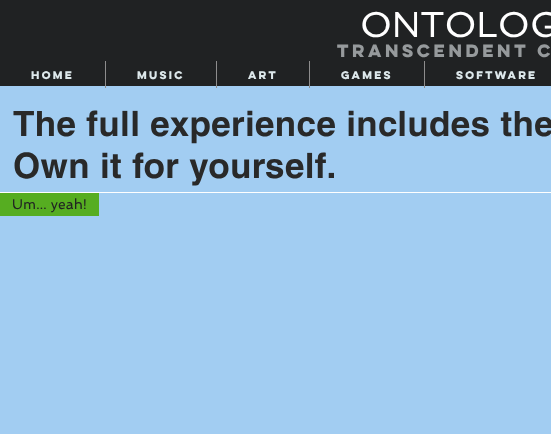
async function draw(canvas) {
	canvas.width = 551;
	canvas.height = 434;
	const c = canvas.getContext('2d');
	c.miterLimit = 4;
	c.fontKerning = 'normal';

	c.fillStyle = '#a2cdf2';
	c.fillRect(0, 0, 551, 434);
	c.fillStyle = '#202223';
	c.fillRect(0, 0, 551, 86);
	c.font = '36px Spinnaker';
	c.fillStyle = '#fff';
	c.fillText('ONTOLOG', 360, 37);
	c.font = 'bold 16px "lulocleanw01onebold"';
	c.fillStyle = '#969a9c';
	c.fillText('Transcendent c', 337, 57);
	c.font = 'bold 10px "lulocleanw01onebold"';
	c.fillStyle = '#dde8eb';
	c.fillText('Home', 31, 79);
	c.fillStyle = '#8d8d8d';
	c.fillRect(105, 61, 1, 27);
	c.fillStyle = '#dde8eb';
	c.fillText('Music', 137, 79);
	c.fillStyle = '#8d8d8d';
	c.fillRect(216, 61, 1, 27);
	c.fillStyle = '#dde8eb';
	c.fillText('Art', 248, 79);
	c.fillStyle = '#8d8d8d';
	c.fillRect(309, 61, 1, 27);
	c.fillStyle = '#dde8eb';
	c.fillText('Games', 341, 79);
	c.fillStyle = '#8d8d8d';
	c.fillRect(424, 61, 1, 27);
	c.fillStyle = '#dde8eb';
	c.fillText('Software', 456, 79);
	c.letterSpacing = '0.35px';
	c.font = 'bold 35px helvetica';
	c.fillStyle = '#292929';
	c.fillText('The full experience includes the', 13, 136);
	c.fillText('Own it for yourself.', 13, 178);
	c.strokeStyle = '#fff';
	c.strokeRect(-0.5, 192.5, 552, 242);
	c.fillStyle = '#56ad21';
	c.fillRect(0, 193, 99, 23);
	c.letterSpacing = '0px';
	c.font = '14px Spinnaker';
	c.fillStyle = '#202223';
	c.fillText('Um... yeah!', 12, 209);
}

draw(document.querySelector('canvas'));
